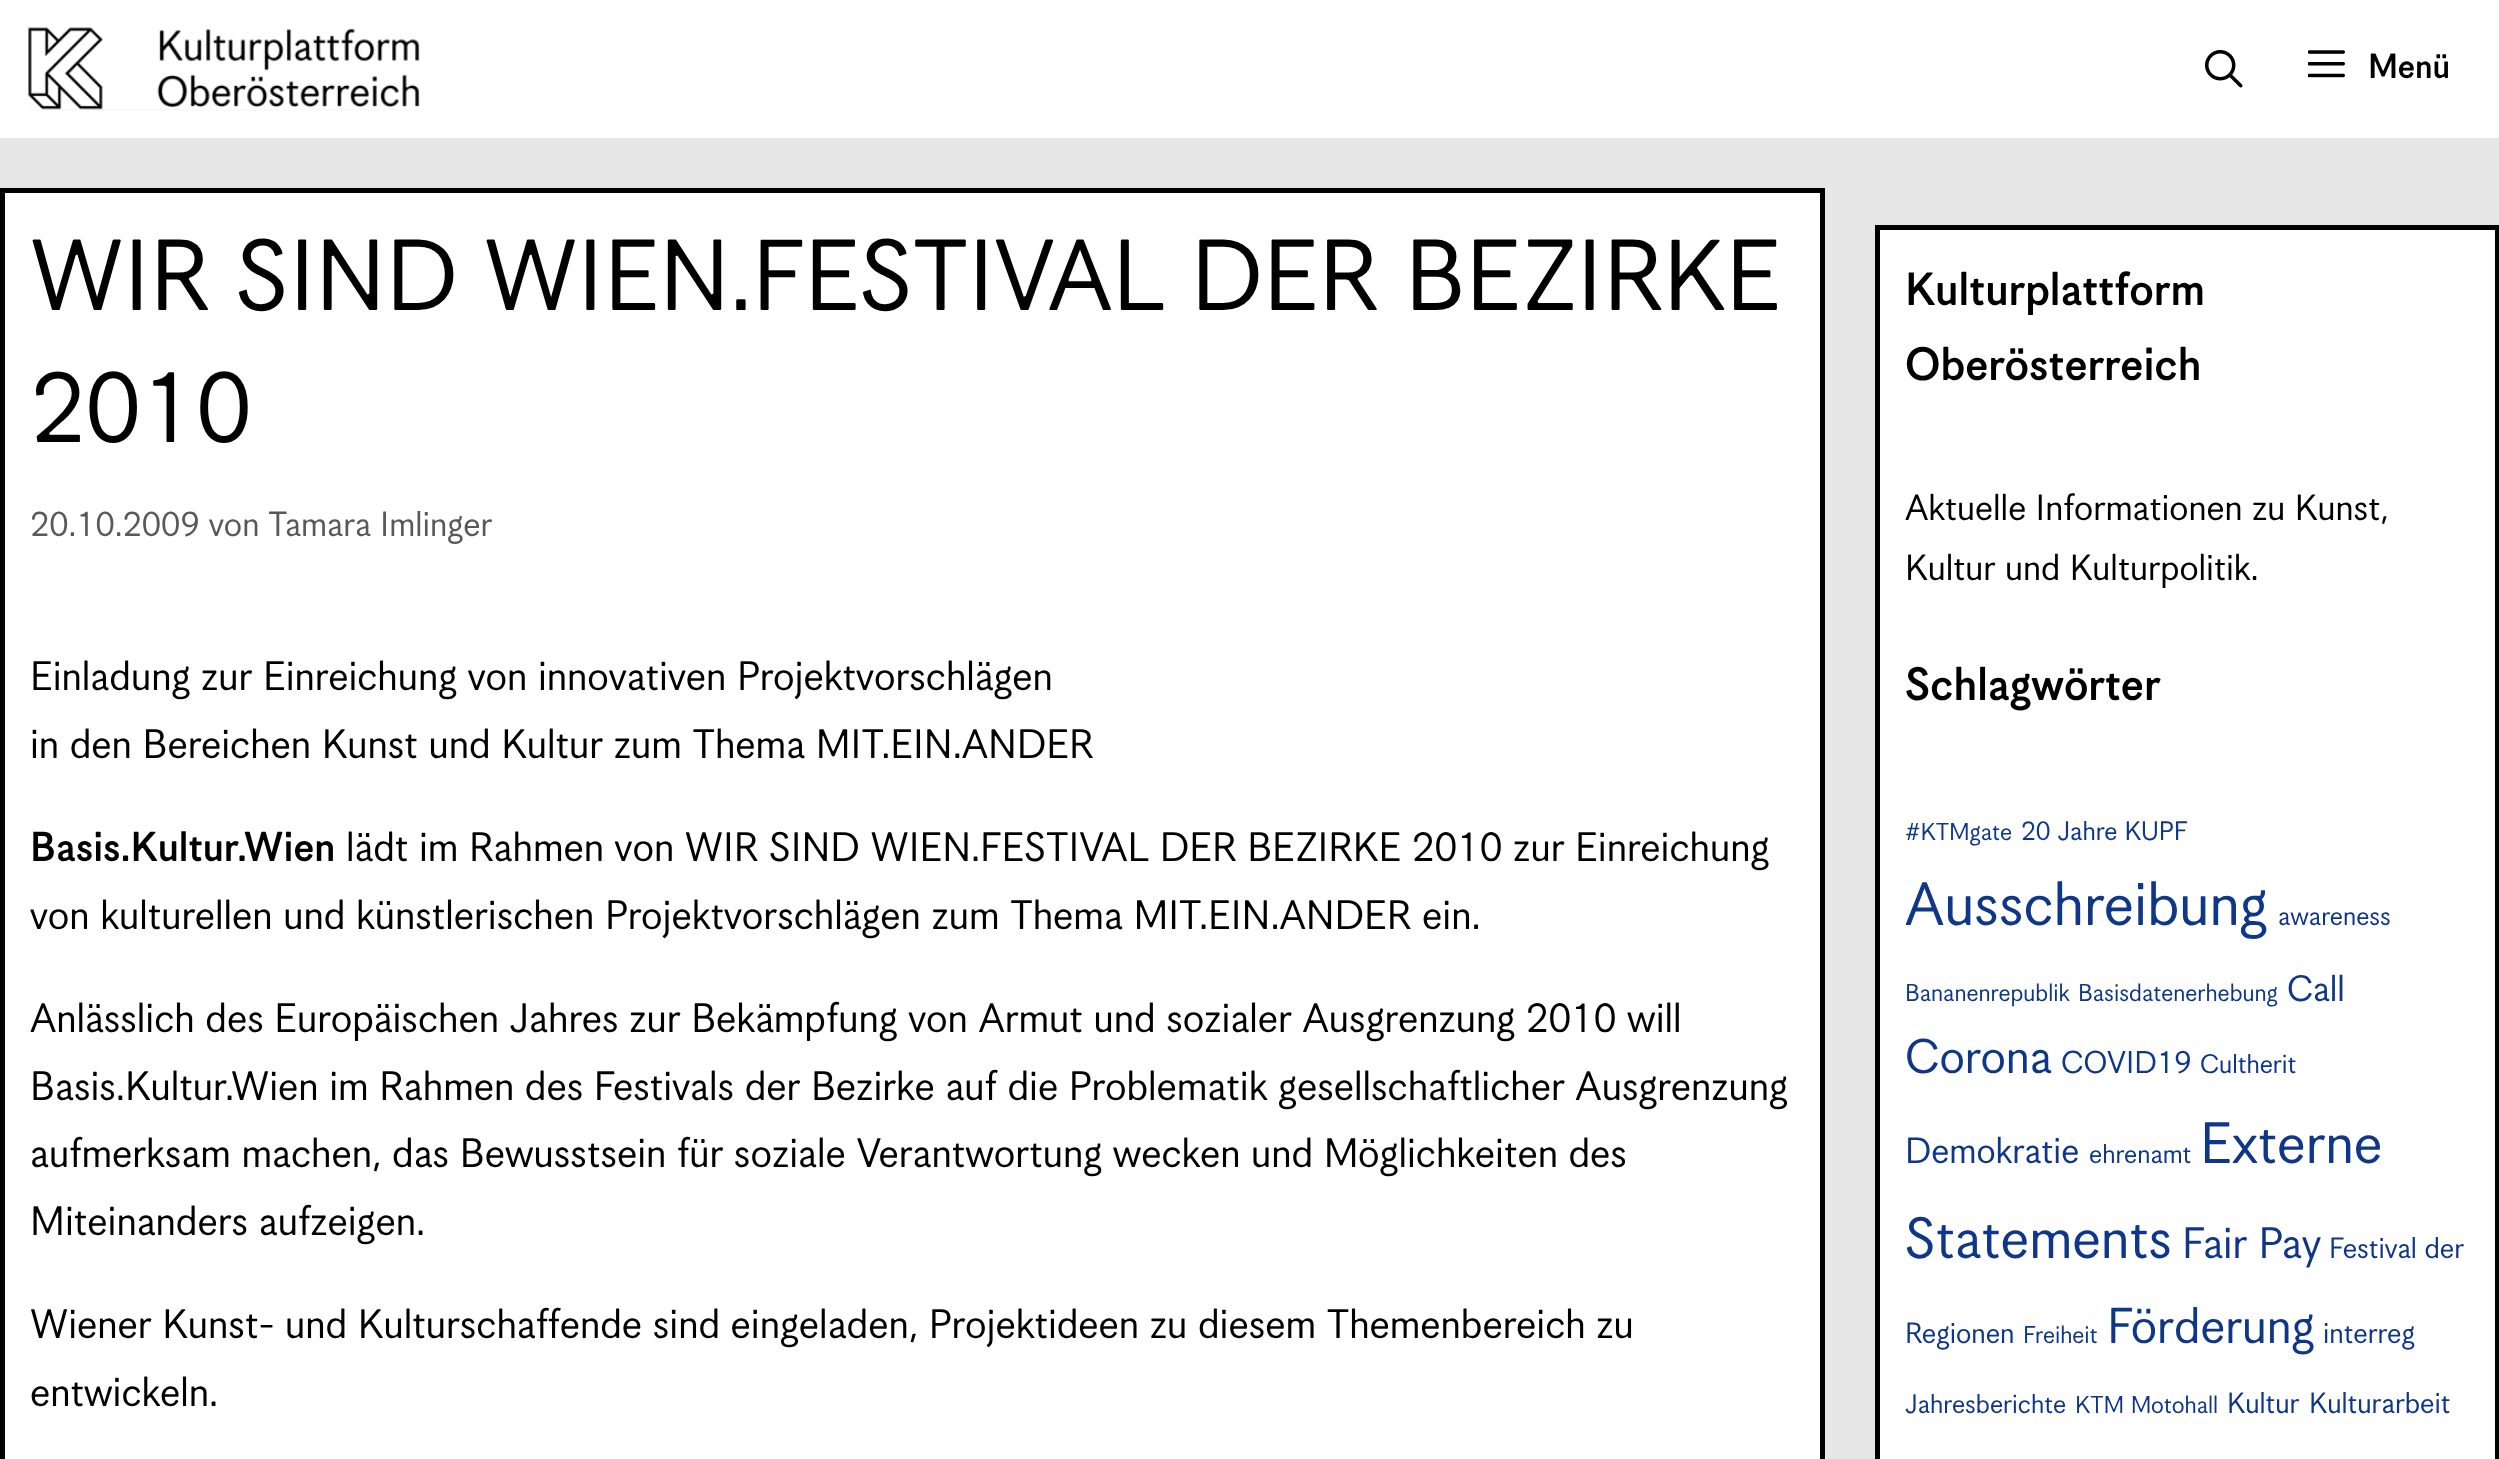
async function draw(canvas) {
	canvas.width = 2499;
	canvas.height = 1459;
	const c = canvas.getContext('2d');
	c.miterLimit = 4;
	c.fontKerning = 'normal';
	async function loadImage(src) {
		const img = new Image();
		img.src = src;
		await img.decode();
		return img;
	}

	c.fillStyle = '#e7e7e7';
	c.fillRect(0, 0, 2499, 1459);
	c.fillStyle = '#fff';
	c.fillRect(0, 0, 2499, 138);
	c.drawImage(await loadImage('img1.png'), 28, 27, 397, 84);
	c.drawImage(await loadImage('img2.png'), 2205, 50, 38, 38);
	c.drawImage(await loadImage('img3.png'), 2308, 50, 37, 28);
	c.font = 'bold 37.5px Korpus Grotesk';
	c.fillStyle = '#000';
	c.fillText('Menü', 2368, 78);
	c.fillStyle = '#fff';
	c.beginPath();
	c.rect(2.5, 190.5, 1820, 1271);
	c.fill();
	c.strokeStyle = '#000';
	c.lineWidth = 5;
	c.stroke();
	c.font = '110px Korpus Grotesk';
	c.fillStyle = '#000';
	c.fillText('WIR SIND WIEN.FESTIVAL DER BEZIRKE', 30, 310);
	c.fillText('2010', 30, 442);
	c.font = '38.25px Korpus Grotesk';
	c.fillStyle = '#595959';
	c.fillText('20.10.2009 von Tamara Imlinger', 30, 536);
	c.font = '45px Korpus Grotesk';
	c.fillStyle = '#000';
	c.fillText('Einladung zur Einreichung von innovativen Projektvorschlägen', 30, 690);
	c.fillText('in den Bereichen Kunst und Kultur zum Thema MIT.EIN.ANDER', 30, 758);
	c.font = 'bold 45px Korpus Grotesk';
	c.fillText('Basis.Kultur.Wien', 30, 861);
	c.font = '45px Korpus Grotesk';
	for (const [text, x, y] of [
		['lädt im Rahmen von WIR SIND WIEN.FESTIVAL DER BEZIRKE 2010 zur Einreichung', 346, 861],
		['von kulturellen und künstlerischen Projektvorschlägen zum Thema MIT.EIN.ANDER ein.', 30, 929],
		['Anlässlich des Europäischen Jahres zur Bekämpfung von Armut und sozialer Ausgrenzung 2010 will', 30, 1032],
		['Basis.Kultur.Wien im Rahmen des Festivals der Bezirke auf die Problematik gesellschaftlicher Ausgrenzung', 30, 1100],
		['aufmerksam machen, das Bewusstsein für soziale Verantwortung wecken und Möglichkeiten des', 30, 1167],
		['Miteinanders aufzeigen.', 30, 1235],
		['Wiener Kunst- und Kulturschaffende sind eingeladen, Projektideen zu diesem Themenbereich zu', 30, 1338],
		['entwickeln.', 30, 1406],
	]) {
		c.fillText(text, x, y);
	}
	c.fillStyle = '#fff';
	c.beginPath();
	c.rect(1877.5, 227.5, 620, 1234);
	c.fill();
	c.stroke();
	c.font = 'bold 50px Korpus Grotesk';
	c.fillStyle = '#000';
	c.fillText('Kulturplattform', 1905, 305);
	c.fillText('Oberösterreich', 1905, 380);
	c.font = '40px Korpus Grotesk';
	c.fillText('Aktuelle Informationen zu Kunst,', 1905, 520);
	c.fillText('Kultur und Kulturpolitik.', 1905, 580);
	c.font = 'bold 50px Korpus Grotesk';
	c.fillText('Schlagwörter', 1905, 700);
	c.font = '26.75px Korpus Grotesk';
	c.fillStyle = '#0f3789';
	c.fillText('#KTMgate', 1905, 840);
	c.font = '29.25px Korpus Grotesk';
	c.fillText('20 Jahre KUPF', 2021, 840);
	c.font = '67px Korpus Grotesk';
	c.fillText('Ausschreibung', 1905, 925);
	c.font = '29.25px Korpus Grotesk';
	c.fillText('awareness', 2278, 925);
	c.font = '26.75px Korpus Grotesk';
	c.fillText('Bananenrepublik', 1905, 1001);
	c.fillText('Basisdatenerhebung', 2078, 1001);
	c.font = '40px Korpus Grotesk';
	c.fillText('Call', 2287, 1001);
	c.font = '53px Korpus Grotesk';
	c.fillText('Corona', 1905, 1073);
	c.font = '34.5px Korpus Grotesk';
	c.fillText('COVID19', 2061, 1073);
	c.font = '29.25px Korpus Grotesk';
	c.fillText('Cultherit', 2200, 1073);
	c.font = '40px Korpus Grotesk';
	c.fillText('Demokratie', 1905, 1163);
	c.font = '29.25px Korpus Grotesk';
	c.fillText('ehrenamt', 2089, 1163);
	c.font = '63.5px Korpus Grotesk';
	c.fillText('Externe', 2200, 1163);
	c.fillText('Statements', 1905, 1258);
	c.font = '48px Korpus Grotesk';
	c.fillText('Fair Pay', 2182, 1258);
	c.font = '32px Korpus Grotesk';
	c.fillText('Festival der', 2329, 1258);
	c.fillText('Regionen', 1905, 1343);
	c.font = '26.75px Korpus Grotesk';
	c.fillText('Freiheit', 2023, 1343);
	c.font = '55px Korpus Grotesk';
	c.fillText('Förderung', 2107, 1343);
	c.font = '32px Korpus Grotesk';
	c.fillText('interreg', 2323, 1343);
	c.font = '29.25px Korpus Grotesk';
	c.fillText('Jahresberichte', 1905, 1413);
	c.font = '26.75px Korpus Grotesk';
	c.fillText('KTM Motohall', 2075, 1413);
	c.font = '32px Korpus Grotesk';
	c.fillText('Kultur', 2227, 1413);
	c.fillText('Kulturarbeit', 2309, 1413);
}

draw(document.querySelector('canvas'));
